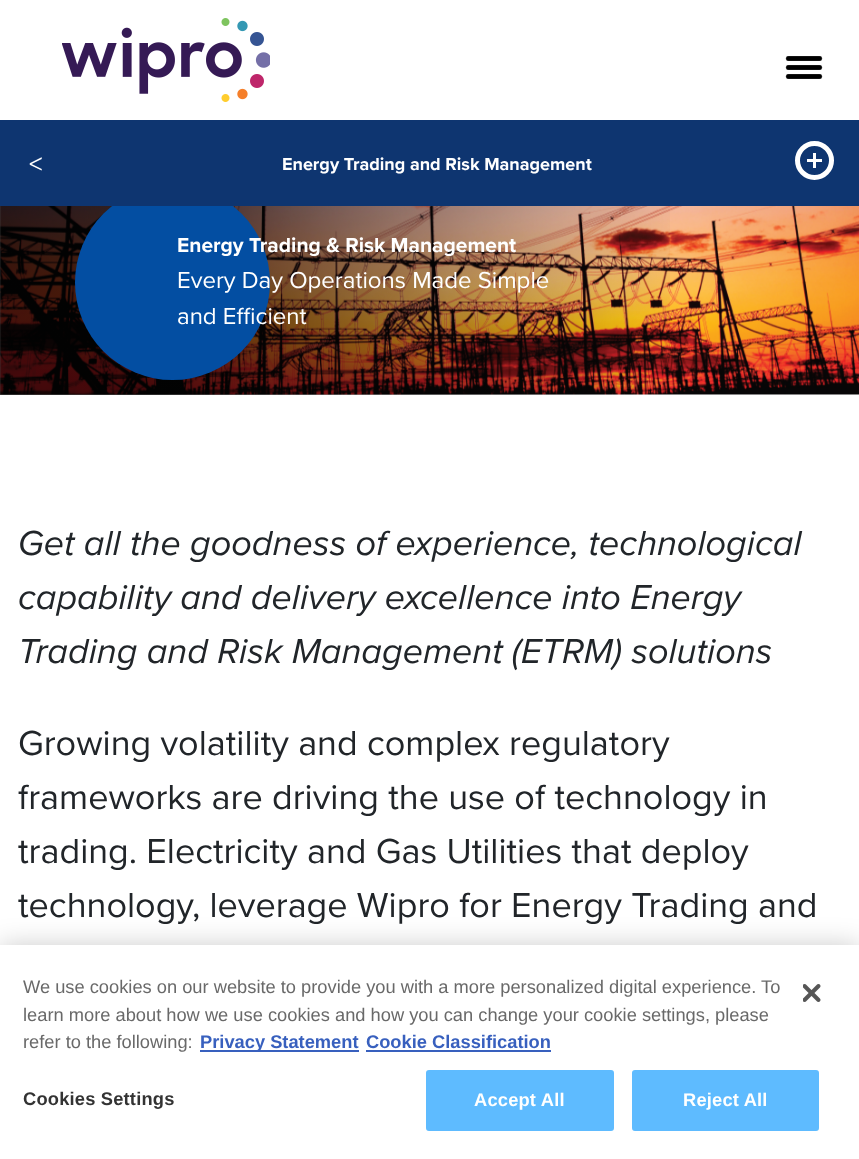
async function draw(canvas) {
	canvas.width = 859;
	canvas.height = 1159;
	const c = canvas.getContext('2d');
	c.miterLimit = 4;
	c.fontKerning = 'normal';
	async function loadImage(src) {
		const img = new Image();
		img.src = src;
		await img.decode();
		return img;
	}
	let gradient;

	c.fillStyle = '#fff';
	c.fillRect(0, 0, 859, 1159);
	c.drawImage(await loadImage('img1.png'), 62, 18, 208, 84);
	c.drawImage(await loadImage('img2.png'), 785, 56, 38, 23);
	c.drawImage(await loadImage('img3.png'), 0, 206, 859, 189);
	gradient = c.createLinearGradient(0, 282, 687, 282);
	gradient.addColorStop(0.21, '#000000b3');
	gradient.addColorStop(1, '#00000000');
	c.fillStyle = gradient;
	c.fillRect(0, 206, 670, 189);
	c.fillStyle = '#034ea2';
	c.beginPath();
	c.arc(172.5, 282.5, 97.5, 0, 2 * Math.PI);
	c.fill();
	c.fillStyle = '#0e3570';
	c.fillRect(0, 120, 859, 86);
	c.font = '27px Proxima Nova';
	c.fillStyle = '#fff';
	c.fillText('<', 29, 173);
	c.font = 'bold 18px Proxima Nova';
	c.fillText('Energy Trading and Risk Management', 282, 170);
	c.beginPath();
	c.arc(814.5, 160.5, 17, 0, 2 * Math.PI);
	c.strokeStyle = '#fff';
	c.lineWidth = 5;
	c.stroke();
	c.fillRect(813, 153, 3, 15);
	c.fillRect(807, 159, 15, 3);
	c.font = 'bold 21px Proxima Nova';
	c.fillText('Energy Trading & Risk Management', 177, 252);
	c.font = '24px Proxima Nova';
	c.fillText('Every Day Operations Made Simple', 177, 288);
	c.fillText('and Efficient', 177, 324);
	c.font = 'italic 36px Proxima Nova';
	c.fillStyle = '#212529';
	for (const [text, x, y] of [
		['Get all the goodness of experience, technological', 18, 555],
		['capability and delivery excellence into Energy', 18, 609],
		['Trading and Risk Management (ETRM) solutions', 18, 663],
	]) {
		c.fillText(text, x, y);
	}
	c.font = '36px Proxima Nova';
	for (const [text, x, y] of [
		['Growing volatility and complex regulatory', 18, 755],
		['frameworks are driving the use of technology in', 18, 809],
		['trading. Electricity and Gas Utilities that deploy', 18, 863],
		['technology, leverage Wipro for Energy Trading and', 18, 917],
	]) {
		c.fillText(text, x, y);
	}
	c.fillStyle = '#00000033';
	c.filter = 'blur(13.5px)';
	c.beginPath();
	c.rect(0, 945, 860, 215);
	c.fill();
	c.filter = 'none';
	c.fillStyle = '#fff';
	c.fillRect(0, 945, 859, 214);
	c.font = '18.3px Liberation Sans';
	c.fillStyle = '#696969';
	for (const [text, x, y] of [
		['We use cookies on our website to provide you with a more personalized digital experience. To', 23, 993],
		['learn more about how we use cookies and how you can change your cookie settings, please', 23, 1021],
		['refer to the following:', 23, 1048],
	]) {
		c.fillText(text, x, y);
	}
	c.fillStyle = '#3860be';
	c.fillRect(200, 1050, 159, 2);
	c.font = 'bold 18.3px Liberation Sans';
	c.fillText('Privacy Statement', 200, 1048);
	c.fillText('Cookie Classification', 366, 1048);
	c.fillRect(366, 1050, 185, 2);
	c.letterSpacing = '0.2px';
	c.fillStyle = '#333';
	c.fillText('Cookies Settings', 23, 1105);
	c.fillStyle = '#5ebbff';
	c.beginPath();
	c.roundRect(427, 1071, 186, 59, 2);
	c.fill();
	c.strokeStyle = '#5ebbff';
	c.lineWidth = 2;
	c.stroke();
	c.fillStyle = '#fff';
	c.fillText('Accept All', 474, 1106);
	c.fillStyle = '#5ebbff';
	c.beginPath();
	c.roundRect(633, 1071, 185, 59, 2);
	c.fill();
	c.stroke();
	c.fillStyle = '#fff';
	c.fillText('Reject All', 683, 1106);
	c.drawImage(await loadImage('img4.png'), 803, 984, 18, 18);
}

draw(document.querySelector('canvas'));
